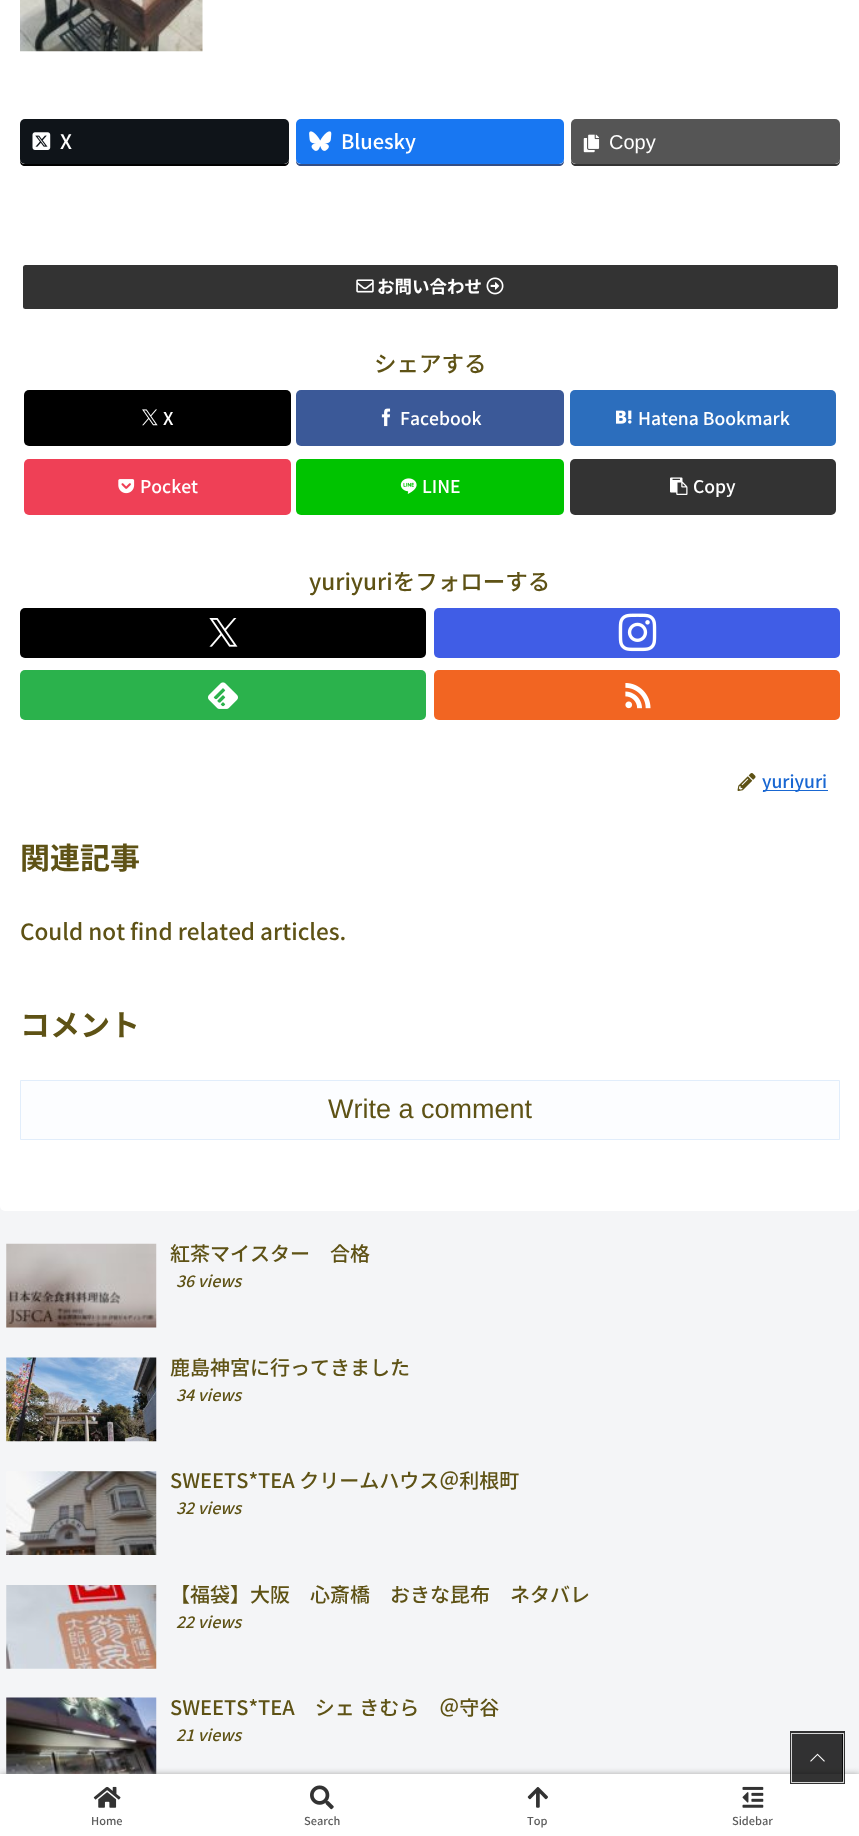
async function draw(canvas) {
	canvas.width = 859;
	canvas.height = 1836;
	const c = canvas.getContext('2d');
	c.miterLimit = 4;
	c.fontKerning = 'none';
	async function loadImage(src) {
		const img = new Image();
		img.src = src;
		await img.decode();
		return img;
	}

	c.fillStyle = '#f4f5f7';
	c.fillRect(0, 0, 859, 1836);
	c.fillStyle = '#fff';
	c.beginPath();
	c.roundRect(0, -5, 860, 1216, 5);
	c.fill();
	c.drawImage(await loadImage('img1.png'), 20, 0, 183, 52);
	c.fillStyle = '#000';
	c.beginPath();
	c.moveTo(20, 159);
	c.lineTo(20, 161);
	c.bezierCurveTo(20, 164, 22, 166, 25, 166);
	c.lineTo(284, 166);
	c.bezierCurveTo(287, 166, 289, 164, 289, 161);
	c.lineTo(289, 124);
	c.lineTo(289, 159);
	c.bezierCurveTo(289, 162, 287, 164, 284, 164);
	c.lineTo(25, 164);
	c.bezierCurveTo(22, 164, 20, 162, 20, 159);
	c.closePath();
	c.fill();
	c.fillStyle = '#0f1419';
	c.beginPath();
	c.roundRect(20, 119, 269, 45, 5);
	c.fill();
	c.drawImage(await loadImage('img2.png'), 32, 132, 19, 18);
	c.font = '500 20px Noto Sans JP';
	c.fillStyle = '#fff';
	c.fillText('X', 60, 149);
	c.fillStyle = '#344e84';
	c.beginPath();
	c.moveTo(296, 124);
	c.lineTo(296, 161);
	c.bezierCurveTo(296, 164, 298, 166, 301, 166);
	c.lineTo(559, 166);
	c.bezierCurveTo(562, 166, 564, 164, 564, 161);
	c.lineTo(564, 124);
	c.lineTo(564, 159);
	c.bezierCurveTo(564, 162, 562, 164, 559, 164);
	c.lineTo(301, 164);
	c.bezierCurveTo(298, 164, 296, 162, 296, 159);
	c.closePath();
	c.fill();
	c.fillStyle = '#1877f2';
	c.beginPath();
	c.roundRect(296, 119, 268, 45, 5);
	c.fill();
	c.drawImage(await loadImage('img3.png'), 309, 131, 23, 20);
	c.fillStyle = '#fff';
	c.fillText('Bluesky', 341, 149);
	c.fillStyle = '#333';
	c.beginPath();
	c.moveTo(571, 124);
	c.lineTo(571, 161);
	c.bezierCurveTo(571, 164, 573, 166, 576, 166);
	c.lineTo(835, 166);
	c.bezierCurveTo(838, 166, 840, 164, 840, 161);
	c.lineTo(840, 159);
	c.bezierCurveTo(840, 162, 838, 164, 835, 164);
	c.lineTo(576, 164);
	c.bezierCurveTo(573, 164, 571, 162, 571, 159);
	c.closePath();
	c.fill();
	c.fillStyle = '#555';
	c.beginPath();
	c.roundRect(571, 119, 269, 45, 5);
	c.fill();
	c.drawImage(await loadImage('img4.png'), 583, 134, 17, 19);
	c.font = '20px Liberation Sans';
	c.fillStyle = '#fff';
	c.fillText('Copy', 609, 149);
	c.fillStyle = '#333';
	c.beginPath();
	c.roundRect(23, 265, 815, 44, 2.5);
	c.fill();
	c.drawImage(await loadImage('img5.png'), 356, 279, 18, 14);
	c.font = 'bold 17.5px Noto Sans JP';
	c.fillStyle = '#fff';
	c.fillText('お問い合わせ', 377, 293);
	c.drawImage(await loadImage('img6.png'), 486, 277, 18, 18);
	c.font = '500 22.5px Noto Sans JP';
	c.fillStyle = '#5e5215';
	c.fillText('シェアする', 374, 372);
	c.fillStyle = '#000';
	c.beginPath();
	c.roundRect(24, 390, 267, 56, 5);
	c.fill();
	c.drawImage(await loadImage('img7.png'), 142, 409, 16, 17);
	c.font = '500 17.5px Noto Sans JP';
	c.fillStyle = '#fff';
	c.fillText('X', 163, 425);
	c.fillStyle = '#3b5998';
	c.beginPath();
	c.roundRect(296, 390, 268, 56, 5);
	c.fill();
	c.drawImage(await loadImage('img8.png'), 381, 408, 10, 19);
	c.fillStyle = '#fff';
	c.fillText('Facebook', 400, 425);
	c.fillStyle = '#2c6ebd';
	c.beginPath();
	c.roundRect(570, 390, 266, 56, 5);
	c.fill();
	c.drawImage(await loadImage('img9.png'), 616, 410, 16, 14);
	c.fillStyle = '#fff';
	c.fillText('Hatena Bookmark', 638, 425);
	c.fillStyle = '#ef4056';
	c.beginPath();
	c.roundRect(24, 459, 267, 56, 5);
	c.fill();
	c.drawImage(await loadImage('img10.png'), 118, 479, 17, 15);
	c.fillStyle = '#fff';
	c.fillText('Pocket', 140, 493);
	c.fillStyle = '#00c300';
	c.beginPath();
	c.roundRect(296, 459, 268, 56, 5);
	c.fill();
	c.drawImage(await loadImage('img11.png'), 400, 478, 17, 16);
	c.fillStyle = '#fff';
	c.fillText('LINE', 422, 493);
	c.fillStyle = '#333';
	c.beginPath();
	c.roundRect(570, 459, 266, 56, 5);
	c.fill();
	c.drawImage(await loadImage('img12.png'), 670, 477, 18, 18);
	c.fillStyle = '#fff';
	c.fillText('Copy', 693, 493);
	c.font = '500 22.5px Noto Sans JP';
	c.fillStyle = '#5e5215';
	c.fillText('yuriyuriをフォローする', 309, 590);
	c.fillStyle = '#000';
	c.beginPath();
	c.roundRect(20, 608, 406, 50, 5);
	c.fill();
	c.drawImage(await loadImage('img13.png'), 209, 618, 29, 29);
	c.fillStyle = '#405de6';
	c.beginPath();
	c.roundRect(434, 608, 406, 50, 5);
	c.fill();
	c.drawImage(await loadImage('img14.png'), 618, 613, 39, 39);
	c.fillStyle = '#2bb24c';
	c.beginPath();
	c.roundRect(20, 670, 406, 50, 5);
	c.fill();
	c.drawImage(await loadImage('img15.png'), 208, 682, 30, 27);
	c.fillStyle = '#f26522';
	c.beginPath();
	c.roundRect(434, 670, 406, 50, 5);
	c.fill();
	c.drawImage(await loadImage('img16.png'), 625, 683, 26, 26);
	c.drawImage(await loadImage('img17.png'), 737, 773, 19, 18);
	c.fillStyle = '#1967d2';
	c.fillRect(763, 790, 65, 1);
	c.font = '500 17.5px Noto Sans JP';
	c.fillText('yuriyuri', 762, 788);
	c.font = 'bold 30px Noto Sans JP';
	c.fillStyle = '#5e5215';
	c.fillText('関連記事', 20, 869);
	c.font = '500 22.5px Noto Sans JP';
	c.fillText('Could not find related articles.', 20, 940);
	c.font = 'bold 30px Noto Sans JP';
	c.fillText('コメント', 20, 1036);
	c.fillStyle = '#fcfdff';
	c.beginPath();
	c.rect(20.5, 1080.5, 819, 59);
	c.fill();
	c.strokeStyle = '#e1edfb';
	c.stroke();
	c.font = '27px Liberation Sans';
	c.fillStyle = '#5e5215';
	c.fillText('Write a comment', 328, 1118);
	c.drawImage(await loadImage('img18.png'), 6, 1243, 151, 85);
	c.font = '500 20px Noto Sans JP';
	c.fillText('紅茶マイスター　合格', 170, 1261);
	c.font = 'italic 500 16px Noto Sans JP';
	c.fillText('36 views', 176, 1287);
	c.drawImage(await loadImage('img19.png'), 6, 1357, 151, 85);
	c.font = '500 20px Noto Sans JP';
	c.fillText('鹿島神宮に行ってきました', 170, 1375);
	c.font = 'italic 500 16px Noto Sans JP';
	c.fillText('34 views', 176, 1401);
	c.drawImage(await loadImage('img20.png'), 6, 1471, 151, 84);
	c.font = '500 20px Noto Sans JP';
	c.fillText('SWEETS*TEA クリームハウス＠利根町', 170, 1488);
	c.font = 'italic 500 16px Noto Sans JP';
	c.fillText('32 views', 176, 1514);
	c.drawImage(await loadImage('img21.png'), 6, 1585, 151, 84);
	c.font = '500 20px Noto Sans JP';
	c.fillText('【福袋】大阪　心斎橋　おきな昆布　ネタバレ', 170, 1602);
	c.font = 'italic 500 16px Noto Sans JP';
	c.fillText('22 views', 176, 1628);
	c.drawImage(await loadImage('img22.png'), 6, 1697, 151, 77);
	c.font = '500 20px Noto Sans JP';
	c.fillText('SWEETS*TEA　シェ きむら　＠守谷', 170, 1715);
	c.font = 'italic 500 16px Noto Sans JP';
	c.fillText('21 views', 176, 1741);
	c.fillStyle = '#a9a9a9';
	c.filter = 'blur(3px)';
	c.beginPath();
	c.rect(0, 1774, 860, 62);
	c.fill();
	c.filter = 'none';
	c.fillStyle = '#fff';
	c.fillRect(0, 1774, 859, 62);
	c.strokeStyle = '#000000cc';
	c.lineWidth = 3;
	c.strokeRect(791.5, 1732.5, 52, 50);
	c.strokeStyle = '#ffffffcc';
	c.lineWidth = 1;
	c.strokeRect(791.5, 1733.5, 52, 49);
	c.fillStyle = '#000000cc';
	c.fillRect(793, 1734, 50, 47);
	c.drawImage(await loadImage('img23.png'), 810, 1753, 15, 9);
	c.drawImage(await loadImage('img24.png'), 93, 1786, 28, 22);
	c.font = '500 11px Noto Sans JP';
	c.fillStyle = '#5c5c5c';
	c.fillText('Home', 91, 1825);
	c.drawImage(await loadImage('img25.png'), 310, 1785, 24, 25);
	c.fillText('Search', 304, 1825);
	c.drawImage(await loadImage('img26.png'), 527, 1787, 21, 21);
	c.fillText('Top', 527, 1825);
	c.drawImage(await loadImage('img27.png'), 742, 1786, 22, 22);
	c.fillText('Sidebar', 732, 1825);
}

draw(document.querySelector('canvas'));
